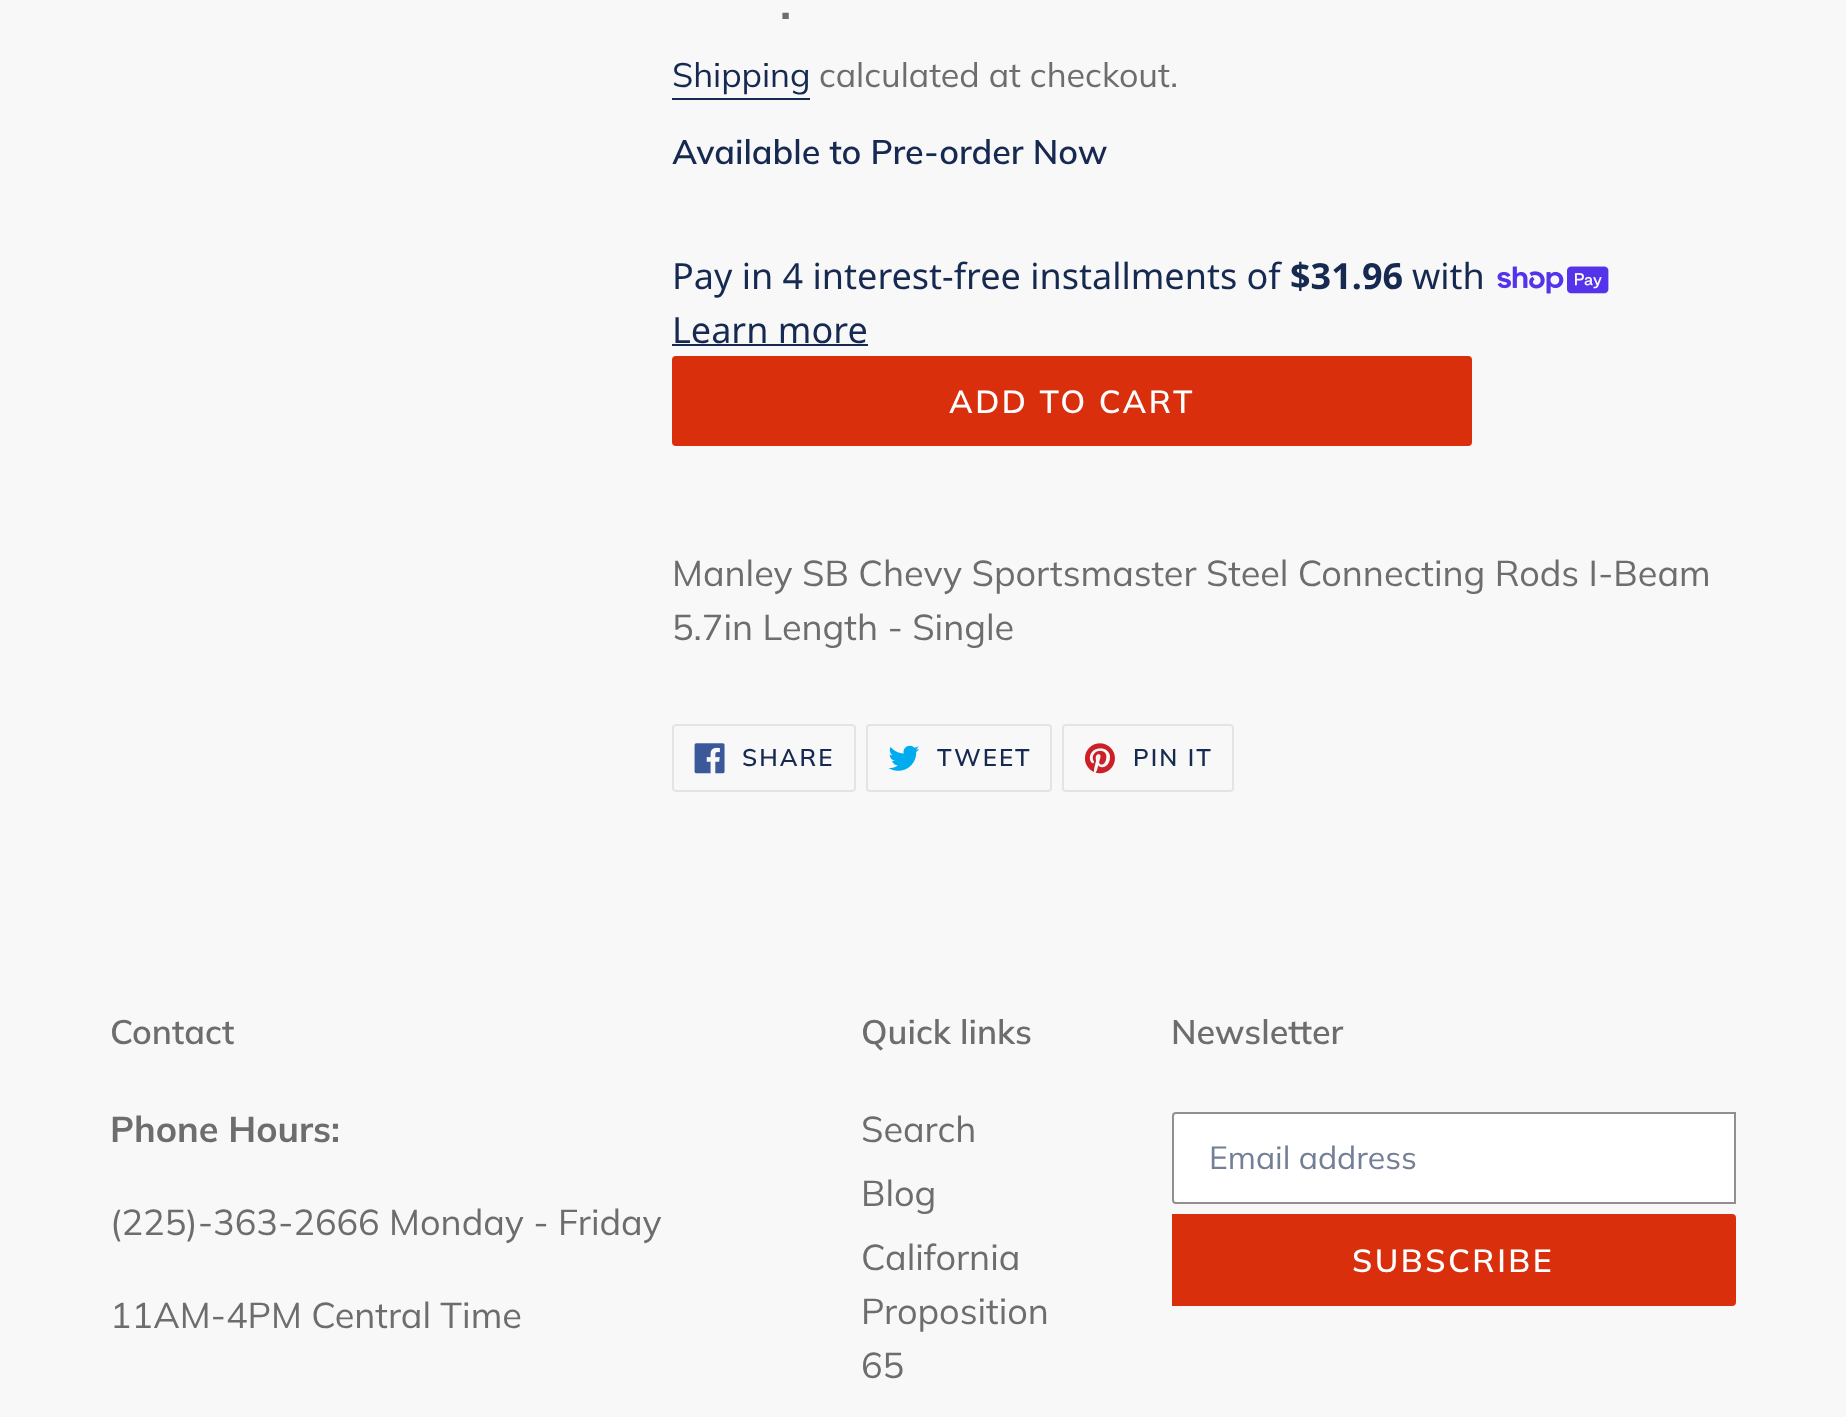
async function draw(canvas) {
	canvas.width = 1846;
	canvas.height = 1417;
	const c = canvas.getContext('2d');
	c.miterLimit = 4;
	c.fontKerning = 'normal';
	async function loadImage(src) {
		const img = new Image();
		img.src = src;
		await img.decode();
		return img;
	}

	c.fillStyle = '#f8f8f8';
	c.fillRect(0, 0, 1846, 1417);
	c.font = 'bold 45px Muli';
	c.fillStyle = '#6d6d6d';
	c.fillText('.', 780, 19);
	c.font = '34px Muli';
	c.fillStyle = '#162950';
	c.fillText('Shipping', 672, 87);
	c.fillRect(672, 98, 138, 2);
	c.fillStyle = '#6d6d6d';
	c.fillText('calculated at checkout.', 819, 87);
	c.font = '600 34px Muli';
	c.fillStyle = '#162950';
	c.fillText('Available to Pre-order Now', 672, 164);
	c.font = '36px Noto Sans';
	c.fillText('Pay in 4 interest-free installments of', 672, 289);
	c.font = 'bold 36px Noto Sans';
	c.fillText('$31.96', 1290, 289);
	c.font = '36px Noto Sans';
	c.fillText('with', 1412, 289);
	c.drawImage(await loadImage('img1.png'), 1497, 266, 112, 28);
	c.fillText('Learn more', 672, 343);
	c.fillRect(672, 344, 196, 2);
	c.fillStyle = '#da2f0c';
	c.beginPath();
	c.roundRect(672, 356, 800, 90, 4);
	c.fill();
	c.letterSpacing = '2.5px';
	c.font = '600 32px Muli';
	c.fillStyle = '#fff';
	c.fillText('ADD TO CART', 949, 413);
	c.letterSpacing = '0px';
	c.font = '36px Muli';
	c.fillStyle = '#6d6d6d';
	c.fillText('Manley SB Chevy Sportsmaster Steel Connecting Rods I-Beam', 672, 586);
	c.fillText('5.7in Length - Single', 672, 640);
	c.beginPath();
	c.roundRect(673, 725, 182, 66, 3);
	c.strokeStyle = '#e4e4e4';
	c.lineWidth = 2;
	c.stroke();
	c.drawImage(await loadImage('img2.png'), 694, 743, 31, 31);
	c.letterSpacing = '2px';
	c.font = '600 24px Muli';
	c.fillStyle = '#162950';
	c.fillText('SHARE', 742, 766);
	c.beginPath();
	c.roundRect(867, 725, 184, 66, 3);
	c.stroke();
	c.drawImage(await loadImage('img3.png'), 888, 745, 32, 26);
	c.fillText('TWEET', 937, 766);
	c.beginPath();
	c.roundRect(1063, 725, 170, 66, 3);
	c.stroke();
	c.drawImage(await loadImage('img4.png'), 1084, 743, 31, 31);
	c.fillText('PIN IT', 1133, 766);
	c.letterSpacing = '0px';
	c.font = '600 34px Muli';
	c.fillStyle = '#6d6d6d';
	c.fillText('Contact', 110, 1044);
	c.font = 'bold 36px Muli';
	c.fillText('Phone Hours:', 110, 1142);
	c.font = '36px Muli';
	c.fillText('(225)-363-2666 Monday - Friday', 110, 1235);
	c.fillText('11AM-4PM Central Time', 110, 1328);
	c.font = '600 34px Muli';
	c.fillText('Quick links', 861, 1044);
	c.font = '36px Muli';
	for (const [text, x, y] of [
		['Search', 861, 1142],
		['Blog', 861, 1206],
		['California', 861, 1270],
		['Proposition', 861, 1324],
		['65', 861, 1378],
	]) {
		c.fillText(text, x, y);
	}
	c.font = '600 34px Muli';
	c.fillText('Newsletter', 1171, 1044);
	c.fillStyle = '#fff';
	c.beginPath();
	c.roundRect(1173, 1113, 562, 90, [3, 0, 0, 3]);
	c.fill();
	c.strokeStyle = '#909090';
	c.stroke();
	c.font = '32px Muli';
	c.fillStyle = '#737f96';
	c.fillText('Email address', 1209, 1169);
	c.fillStyle = '#da2f0c';
	c.beginPath();
	c.roundRect(1172, 1214, 564, 92, [0, 4, 4, 0]);
	c.fill();
	c.letterSpacing = '2.5px';
	c.font = '600 32px Muli';
	c.fillStyle = '#fff';
	c.fillText('SUBSCRIBE', 1352, 1272);
}

draw(document.querySelector('canvas'));
